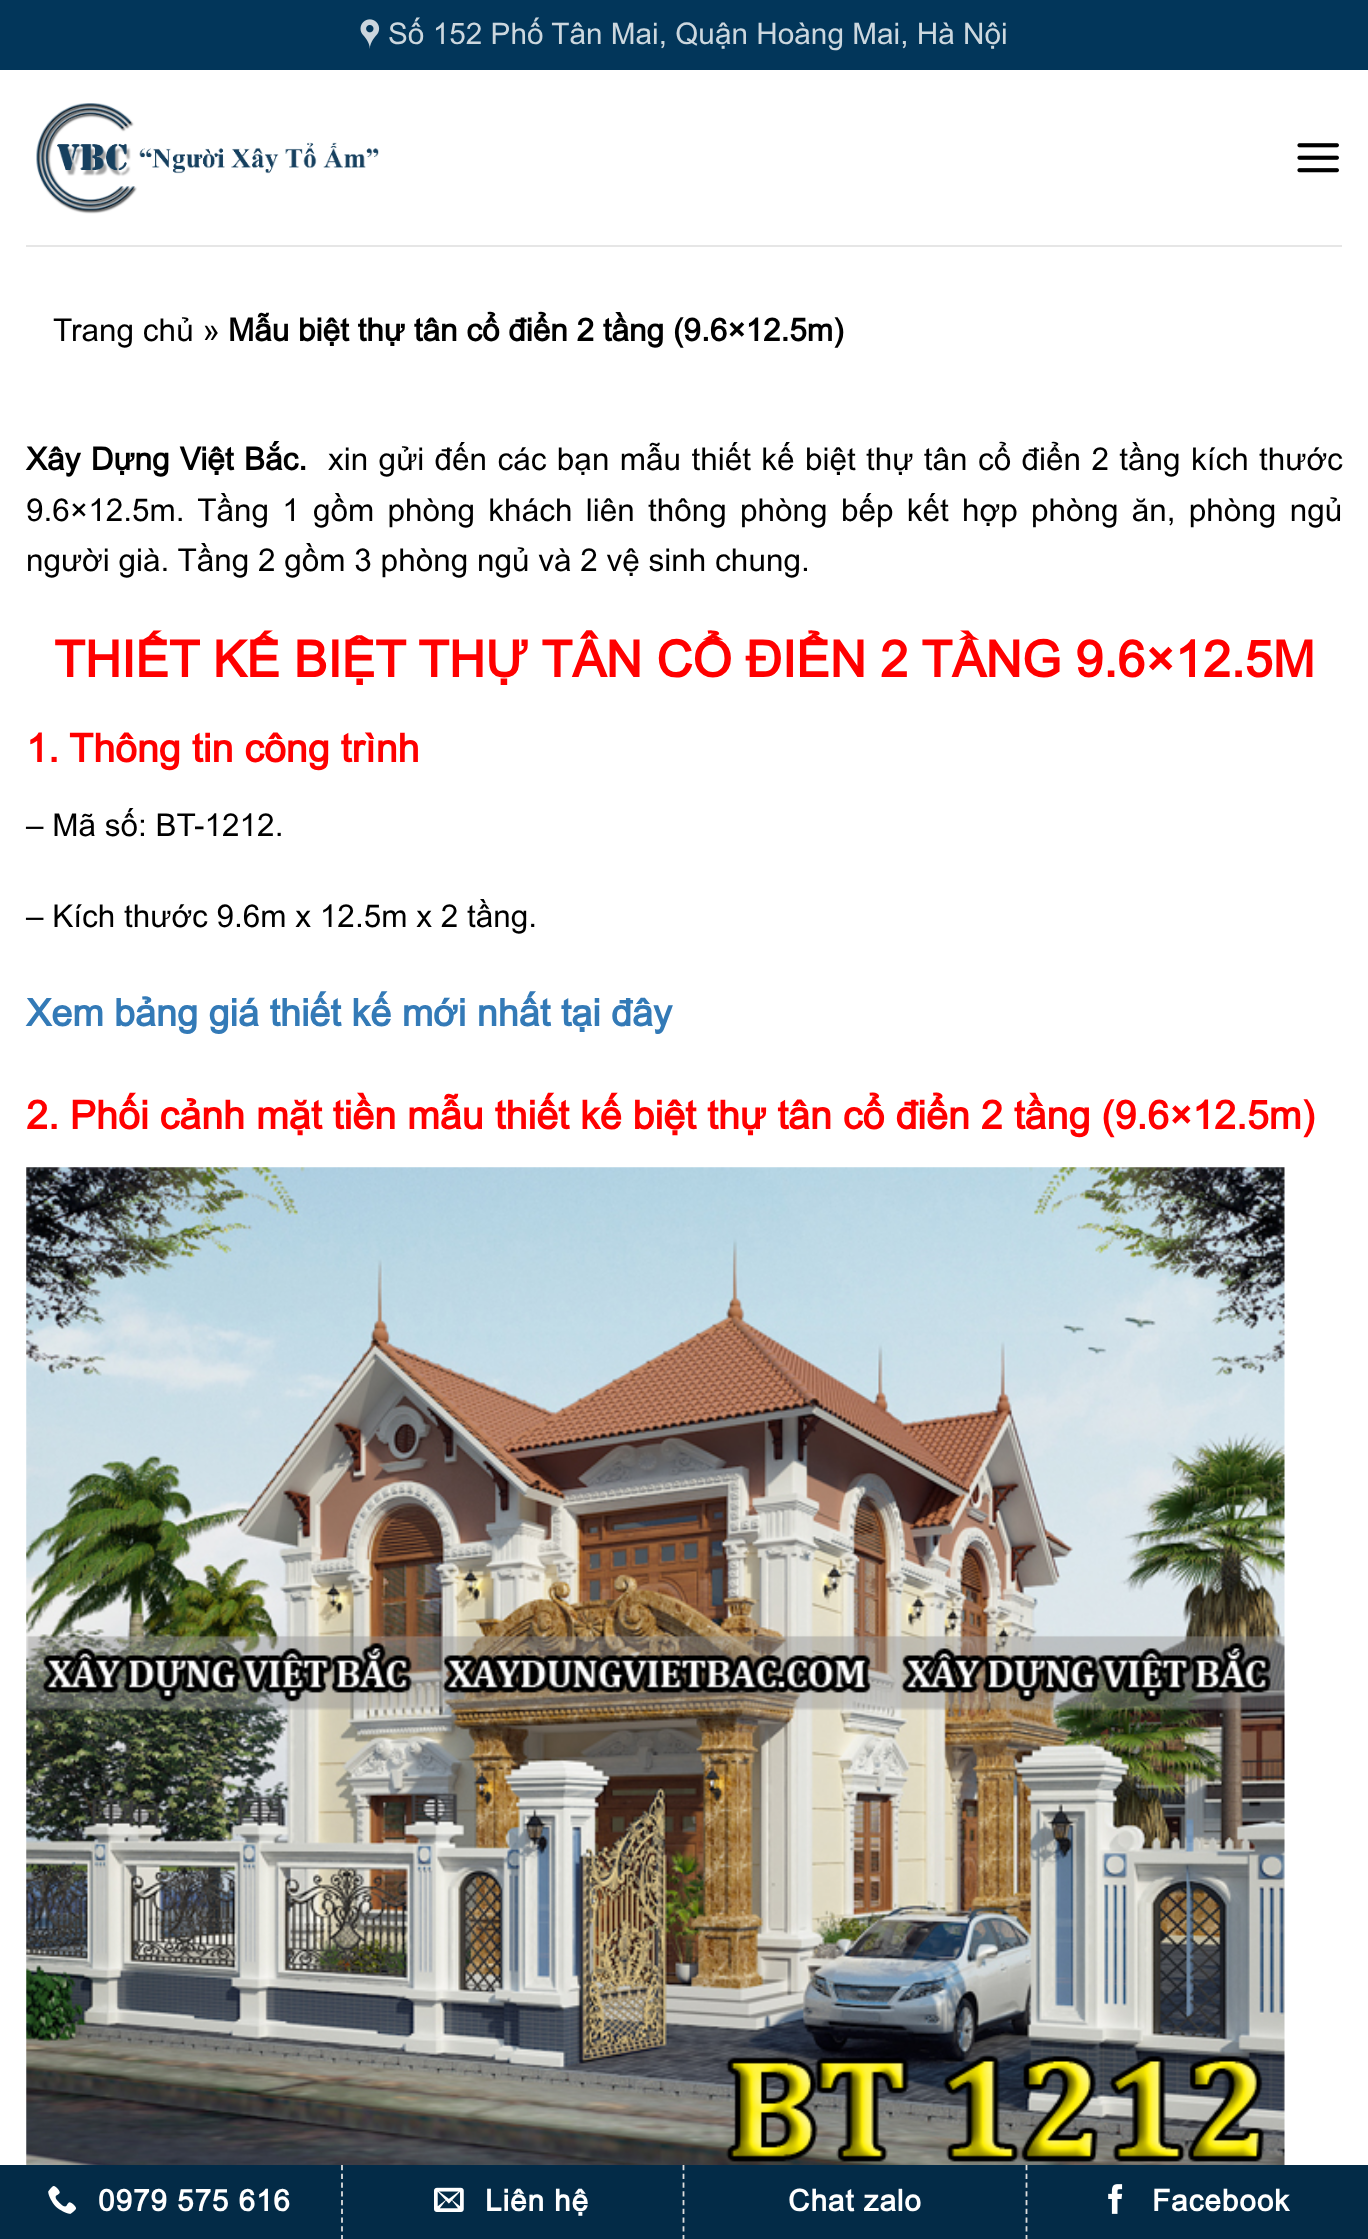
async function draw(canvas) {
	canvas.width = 1368;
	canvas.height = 2239;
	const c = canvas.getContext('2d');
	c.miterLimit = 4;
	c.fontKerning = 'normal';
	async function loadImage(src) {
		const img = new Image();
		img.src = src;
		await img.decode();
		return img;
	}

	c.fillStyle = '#fff';
	c.fillRect(0, 0, 1368, 2239);
	c.fillStyle = '#02365a';
	c.fillRect(0, 0, 1368, 70);
	c.drawImage(await loadImage('img1.png'), 360, 19, 20, 30);
	c.font = '29.75px Arial';
	c.fillStyle = '#ccd7de';
	c.fillText('Số 152 Phố Tân Mai, Quận Hoàng Mai, Hà Nội', 388, 44);
	c.drawImage(await loadImage('img2.png'), 36, 103, 343, 111);
	c.drawImage(await loadImage('img3.png'), 1297, 143, 42, 30);
	c.fillStyle = '#e6e6e6';
	c.fillRect(26, 245, 1316, 2);
	c.font = '31.5px Arial';
	c.fillStyle = '#000';
	c.fillText('Trang chủ »', 53, 341);
	c.font = 'bold 31.5px Arial';
	c.fillText('Mẫu biệt thự tân cổ điển 2 tầng (9.6×12.5m)', 228, 341);
	c.wordSpacing = '1.6px';
	c.fillText('Xây Dựng Việt Bắc.', 26, 470);
	c.font = '31.5px Arial';
	c.fillText('xin gửi đến các bạn mẫu thiết kế biệt thự tân cổ điển 2 tầng kích thước', 328, 470);
	c.wordSpacing = '4.5px';
	c.fillText('9.6×12.5m. Tầng 1 gồm phòng khách liên thông phòng bếp kết hợp phòng ăn, phòng ngủ', 26, 521);
	c.wordSpacing = '0px';
	c.fillText('người già. Tầng 2 gồm 3 phòng ngủ và 2 vệ sinh chung.', 26, 571);
	c.font = 'bold 50.4px Arial';
	c.fillStyle = '#f00';
	c.fillText('THIẾT KẾ BIỆT THỰ TÂN CỔ ĐIỂN 2 TẦNG 9.6×12.5M', 54, 677);
	c.font = 'bold 39.4px Arial';
	c.fillText('1. Thông tin công trình', 26, 762);
	c.font = '31.5px Arial';
	c.fillStyle = '#000';
	c.fillText('– Mã số: BT-1212.', 26, 836);
	c.fillText('– Kích thước 9.6m x 12.5m x 2 tầng.', 26, 927);
	c.font = 'bold 37.75px Arial';
	c.fillStyle = '#337ab7';
	c.fillText('Xem bảng giá thiết kế mới nhất tại đây', 26, 1026);
	c.font = 'bold 39.4px Arial';
	c.fillStyle = '#f00';
	c.fillText('2. Phối cảnh mặt tiền mẫu thiết kế biệt thự tân cổ điển 2 tầng (9.6×12.5m)', 26, 1129);
	c.drawImage(await loadImage('img4.png'), 26, 1167, 1259, 998);
	c.fillStyle = '#032b47';
	c.fillRect(0, 2165, 1368, 74);
	c.drawImage(await loadImage('img5.png'), 48, 2186, 28, 28);
	c.letterSpacing = '0.9px';
	c.font = 'bold 29.75px Arial';
	c.fillStyle = '#fff';
	c.fillText('0979 575 616', 98, 2211);
	c.beginPath();
	c.moveTo(342, 2165);
	c.lineTo(342, 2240);
	c.strokeStyle = '#ddd';
	c.lineWidth = 1.8;
	c.setLineDash([5.25, 3.5]);
	c.stroke();
	c.drawImage(await loadImage('img6.png'), 434, 2187, 30, 25);
	c.fillText('Liên hệ', 485, 2211);
	c.beginPath();
	c.moveTo(683.5, 2165);
	c.lineTo(683.5, 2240);
	c.stroke();
	c.fillText('Chat zalo', 788, 2211);
	c.beginPath();
	c.moveTo(1026.5, 2165);
	c.lineTo(1026.5, 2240);
	c.stroke();
	c.drawImage(await loadImage('img7.png'), 1108, 2184, 15, 30);
	c.fillText('Facebook', 1152, 2211);
}

draw(document.querySelector('canvas'));
